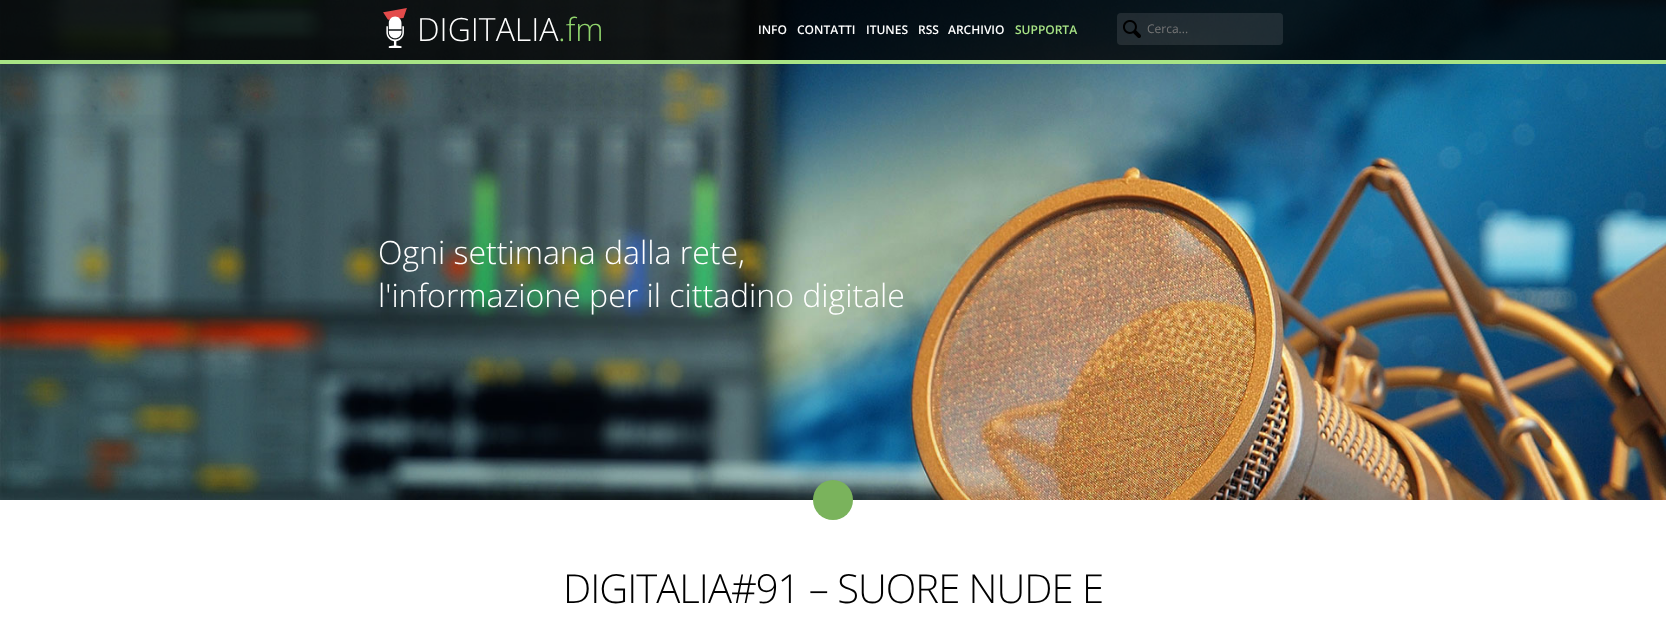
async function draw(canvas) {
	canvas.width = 1666;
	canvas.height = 643;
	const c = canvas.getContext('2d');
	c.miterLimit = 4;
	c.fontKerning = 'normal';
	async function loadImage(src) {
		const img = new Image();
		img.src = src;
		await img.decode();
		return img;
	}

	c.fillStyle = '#fff';
	c.fillRect(0, 0, 1666, 643);
	c.drawImage(await loadImage('img3.png'), 0, 0, 1666, 500);
	c.fillStyle = '#000000cc';
	c.fillRect(0, 0, 1666, 60);
	c.fillStyle = '#a7e385';
	c.fillRect(0, 60, 1666, 4);
	c.drawImage(await loadImage('img1.png'), 383, 8, 24, 40);
	c.font = '300 32px Open Sans';
	c.fillStyle = '#fff';
	c.fillText('DIGITALIA', 417, 41);
	c.fillStyle = '#91d56d';
	c.fillText('.fm', 558, 41);
	c.font = '600 12px Open Sans';
	c.fillStyle = '#fff';
	for (const [text, x, y] of [
		['INFO', 758, 34],
		['CONTATTI', 797, 34],
		['ITUNES', 866, 34],
		['RSS', 918, 34],
		['ARCHIVIO', 948, 34],
	]) {
		c.fillText(text, x, y);
	}
	c.fillStyle = '#a7e385';
	c.fillText('SUPPORTA', 1015, 34);
	c.fillStyle = '#ffffff1a';
	c.beginPath();
	c.roundRect(1117, 13, 166, 32, 4);
	c.fill();
	c.drawImage(await loadImage('img2.png'), 1123, 20, 18, 18);
	c.font = '12px Open Sans';
	c.fillStyle = '#777';
	c.fillText('Cerca...', 1147, 33);
	c.font = '300 32px Open Sans';
	c.fillStyle = '#fff';
	c.fillText('Ogni settimana dalla rete,', 378, 264);
	c.fillText('l\'informazione per il cittadino digitale', 378, 307);
	c.fillStyle = '#7ab35c';
	c.beginPath();
	c.arc(833, 500, 20, 0, 2 * Math.PI);
	c.fill();
	c.letterSpacing = '-1px';
	c.font = '300 40px Open Sans';
	c.fillStyle = '#000';
	c.fillText('DIGITALIA#91 – SUORE NUDE E', 563, 603);
}

draw(document.querySelector('canvas'));
